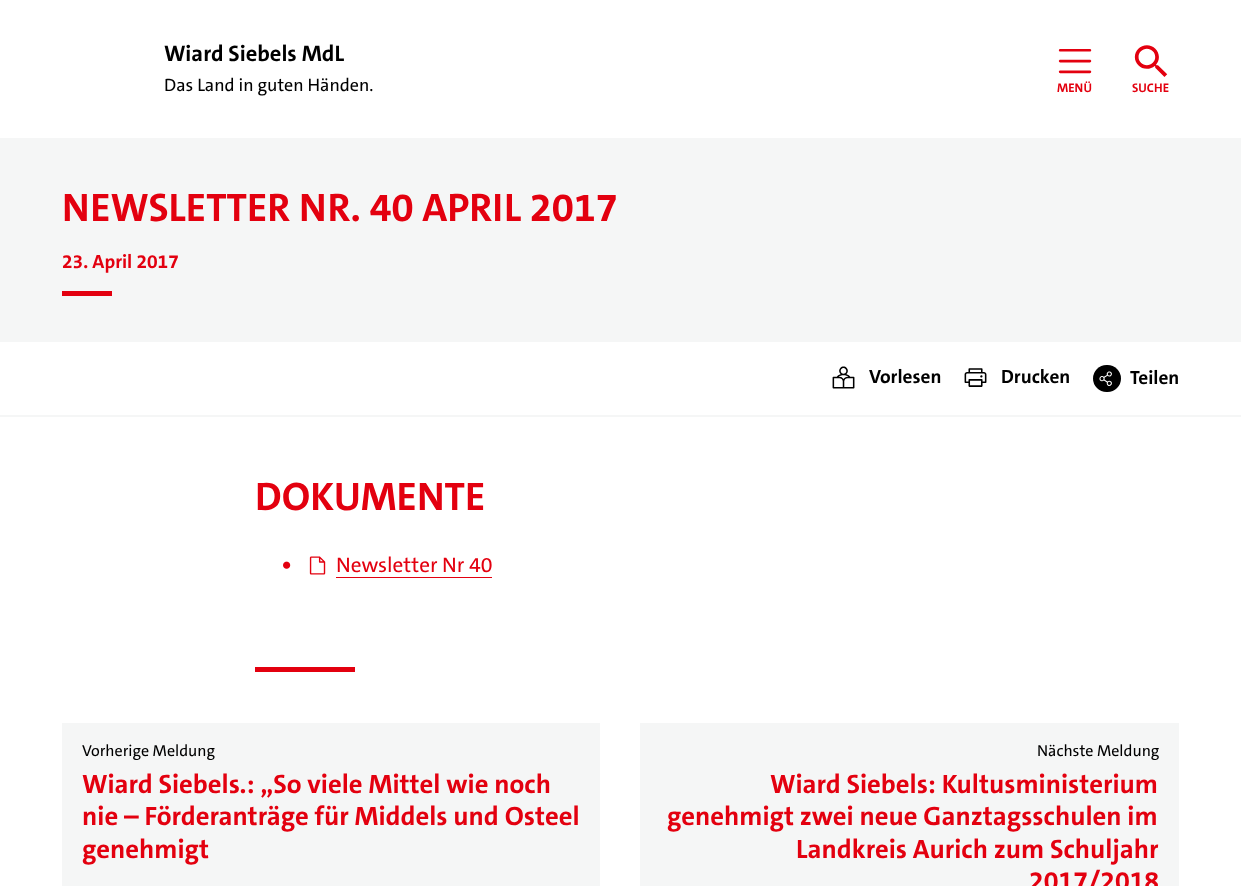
async function draw(canvas) {
	canvas.width = 1241;
	canvas.height = 886;
	const c = canvas.getContext('2d');
	c.miterLimit = 4;
	c.fontKerning = 'normal';
	async function loadImage(src) {
		const img = new Image();
		img.src = src;
		await img.decode();
		return img;
	}

	c.fillStyle = '#fff';
	c.fillRect(0, 0, 1241, 886);
	c.font = 'bold 22.5px "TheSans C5"';
	c.fillStyle = '#000';
	c.fillText('Wiard Siebels MdL', 164, 61);
	c.font = '500 18px "TheSans C5"';
	c.fillText('Das Land in guten Händen.', 164, 91);
	c.drawImage(await loadImage('img1.png'), 1058, 49, 34, 25);
	c.font = 'bold 12.5px "TheSans C5"';
	c.fillStyle = '#e3000f';
	c.fillText('MENÜ', 1057, 92);
	c.drawImage(await loadImage('img2.png'), 1134, 45, 34, 32);
	c.fillText('SUCHE', 1132, 92);
	c.fillStyle = '#f5f6f6';
	c.fillRect(0, 138, 1241, 204);
	c.font = 'bold 40px "TheSans C5"';
	c.fillStyle = '#e3000f';
	c.fillText('NEWSLETTER NR. 40 APRIL 2017', 62, 221);
	c.font = 'bold 19.25px "TheSans C5"';
	c.fillText('23. April 2017', 62, 268);
	c.fillRect(62, 291, 50, 5);
	c.fillStyle = '#f5f6f6';
	c.fillRect(0, 415, 1241, 2);
	c.drawImage(await loadImage('img3.png'), 832, 366, 23, 23);
	c.fillStyle = '#000';
	c.fillText('Vorlesen', 869, 383);
	c.drawImage(await loadImage('img4.png'), 964, 368, 23, 19);
	c.fillText('Drucken', 1001, 383);
	c.beginPath();
	c.roundRect(1093, 365, 28, 27, 13.5);
	c.fill();
	c.drawImage(await loadImage('img5.png'), 1099, 371, 13, 15);
	c.fillText('Teilen', 1130, 384);
	c.font = 'bold 40px "TheSans C5"';
	c.fillStyle = '#e3000f';
	c.fillText('DOKUMENTE', 255, 510);
	c.drawImage(await loadImage('img6.png'), 283, 561, 8, 8);
	c.drawImage(await loadImage('img7.png'), 309, 556, 17, 19);
	c.font = '500 21.25px "TheSans C5"';
	c.fillText('Newsletter Nr 40', 336, 572);
	for (const [x, y, w, h, color] of [
		[336, 577, 156, 1, '#e3000f'],
		[255, 667, 100, 5, '#e3000f'],
		[62, 723, 538, 163, '#f5f6f6'],
	]) {
		c.fillStyle = color;
		c.fillRect(x, y, w, h);
	}
	c.font = '500 16px "TheSans C5"';
	c.fillStyle = '#000';
	c.fillText('Vorherige Meldung', 82, 756);
	c.font = 'bold 26.75px "TheSans C5"';
	c.fillStyle = '#e3000f';
	for (const [text, x, y] of [
		['Wiard Siebels.: „So viele Mittel wie noch', 82, 793],
		['nie – Förderanträge für Middels und Osteel', 82, 825],
		['genehmigt', 82, 858],
	]) {
		c.fillText(text, x, y);
	}
	c.fillStyle = '#f5f6f6';
	c.fillRect(640, 723, 539, 163);
	c.font = '500 16px "TheSans C5"';
	c.fillStyle = '#000';
	c.fillText('Nächste Meldung', 1037, 756);
	c.font = 'bold 26.75px "TheSans C5"';
	c.fillStyle = '#e3000f';
	for (const [text, x, y] of [
		['Wiard Siebels: Kultusministerium', 770, 793],
		['genehmigt zwei neue Ganztagsschulen im', 667, 825],
		['Landkreis Aurich zum Schuljahr', 796, 858],
		['2017/2018', 1029, 890],
	]) {
		c.fillText(text, x, y);
	}
}

draw(document.querySelector('canvas'));
